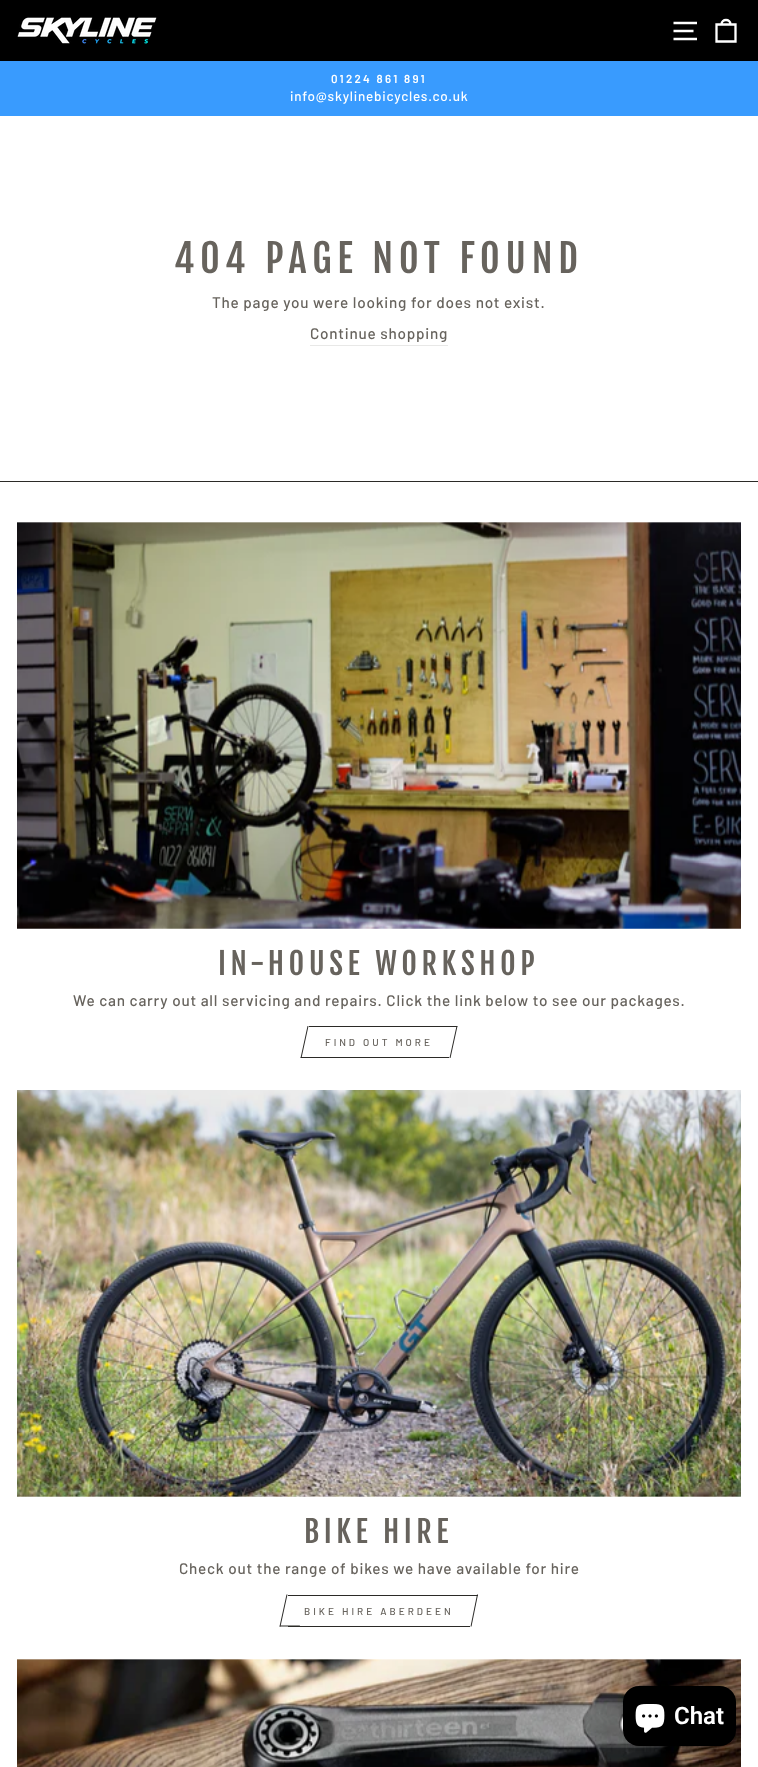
async function draw(canvas) {
	canvas.width = 758;
	canvas.height = 1767;
	const c = canvas.getContext('2d');
	c.miterLimit = 4;
	c.fontKerning = 'normal';
	async function loadImage(src) {
		const img = new Image();
		img.src = src;
		await img.decode();
		return img;
	}

	c.fillStyle = '#fff';
	c.fillRect(0, 0, 758, 1767);
	c.fillStyle = '#000';
	c.fillRect(0, 0, 758, 61);
	c.drawImage(await loadImage('img1.png'), 17, 17, 140, 27);
	c.beginPath();
	c.moveTo(673.5, 23);
	c.lineTo(697, 23);
	c.moveTo(673.5, 31);
	c.lineTo(693.5, 31);
	c.moveTo(673.5, 39);
	c.lineTo(697, 39);
	c.strokeStyle = '#fff';
	c.lineWidth = 2.3;
	c.stroke();
	c.beginPath();
	c.moveTo(716.5, 24.5);
	c.lineTo(735.5, 24.5);
	c.lineTo(735.5, 41.5);
	c.lineTo(716.5, 41.5);
	c.closePath();
	c.moveTo(721.5, 24.5);
	c.bezierCurveTo(721.5, 18.5, 730.5, 18.5, 730.5, 24.5);
	c.stroke();
	c.fillStyle = '#399bfe';
	c.fillRect(0, 61, 758, 55);
	c.letterSpacing = '2.25px';
	c.font = '600 11.5px Barlow';
	c.fillStyle = '#fff';
	c.fillText('01224 861 891', 331, 83);
	c.letterSpacing = '0.77px';
	c.font = '500 13.5px Barlow';
	c.fillText('info@skylinebicycles.co.uk', 290, 101);
	c.letterSpacing = '5.75px';
	c.font = '38.25px Fjalla One';
	c.fillStyle = '#67635d';
	c.fillText('404 PAGE NOT FOUND', 174, 273);
	c.letterSpacing = '0.77px';
	c.font = '500 15.3px Barlow';
	c.fillText('The page you were looking for does not exist.', 212, 308);
	c.fillStyle = '#e8e8e7';
	c.fillRect(310, 345, 138, 1);
	c.fillStyle = '#67635d';
	c.fillText('Continue shopping', 310, 339);
	c.fillStyle = '#2b2a27';
	c.fillRect(0, 481, 758, 1);
	c.drawImage(await loadImage('img2.png'), 17, 522, 724, 407);
	c.letterSpacing = '4.5px';
	c.font = '30.1px Fjalla One';
	c.fillStyle = '#67635d';
	c.fillText('IN-HOUSE WORKSHOP', 218, 975);
	c.letterSpacing = '0.77px';
	c.font = '500 15.3px Barlow';
	c.fillText('We can carry out all servicing and repairs. Click the link below to see our packages.', 73, 1006);
	c.fillStyle = '#2b2a27';
	c.fillRect(309, 1026, 129, 1);
	c.fillRect(320, 1057, 129, 1);
	c.beginPath();
	c.moveTo(301, 1057);
	c.lineTo(321, 1057);
	c.lineTo(320.5, 1058);
	c.lineTo(300.5, 1058);
	c.closePath();
	c.fill();
	c.beginPath();
	c.moveTo(307.5, 1026);
	c.lineTo(308.5, 1026);
	c.lineTo(301.5, 1058);
	c.lineTo(300.5, 1058);
	c.closePath();
	c.fill();
	c.letterSpacing = '3px';
	c.font = '500 10px Barlow';
	c.fillStyle = '#67635d';
	c.fillText('FIND OUT MORE', 325, 1046);
	c.fillStyle = '#2b2a27';
	c.beginPath();
	c.moveTo(437.5, 1026);
	c.lineTo(457.5, 1026);
	c.lineTo(457, 1027);
	c.lineTo(437, 1027);
	c.closePath();
	c.fill();
	c.beginPath();
	c.moveTo(456.5, 1026);
	c.lineTo(457.5, 1026);
	c.lineTo(450.5, 1058);
	c.lineTo(449.5, 1058);
	c.closePath();
	c.fill();
	c.drawImage(await loadImage('img3.png'), 17, 1090, 724, 407);
	c.letterSpacing = '4.5px';
	c.font = '30.1px Fjalla One';
	c.fillStyle = '#67635d';
	c.fillText('BIKE HIRE', 304, 1543);
	c.letterSpacing = '0.77px';
	c.font = '500 15.3px Barlow';
	c.fillText('Check out the range of bikes we have available for hire', 179, 1574);
	c.fillStyle = '#2b2a27';
	c.fillRect(288, 1595, 190, 1);
	c.fillRect(288, 1626, 182, 1);
	c.beginPath();
	c.moveTo(280, 1625.5);
	c.lineTo(300, 1625.5);
	c.lineTo(299.5, 1626.5);
	c.lineTo(279.5, 1626.5);
	c.closePath();
	c.fill();
	c.beginPath();
	c.moveTo(286.5, 1594.5);
	c.lineTo(287.5, 1594.5);
	c.lineTo(280.5, 1626.5);
	c.lineTo(279.5, 1626.5);
	c.closePath();
	c.fill();
	c.letterSpacing = '3px';
	c.font = '500 10px Barlow';
	c.fillStyle = '#67635d';
	c.fillText('BIKE HIRE ABERDEEN', 304, 1615);
	c.fillStyle = '#2b2a27';
	c.beginPath();
	c.moveTo(477, 1594.5);
	c.lineTo(478, 1594.5);
	c.lineTo(471.5, 1626.5);
	c.lineTo(470.5, 1626.5);
	c.closePath();
	c.fill();
	c.drawImage(await loadImage('img4.png'), 17, 1659, 724, 108);
	c.fillStyle = '#00000026';
	c.filter = 'blur(2.5px)';
	c.beginPath();
	c.roundRect(623, 1686, 113, 60, 16);
	c.fill();
	c.filter = 'none';
	c.fillStyle = '#000';
	c.beginPath();
	c.roundRect(623, 1686, 113, 60, 16);
	c.fill();
	c.drawImage(await loadImage('img5.png'), 635, 1704, 30, 29);
	c.letterSpacing = '0px';
	c.font = '600 24px Roboto';
	c.fillStyle = '#fff';
	c.fillText('Chat', 674, 1724);
}

draw(document.querySelector('canvas'));
